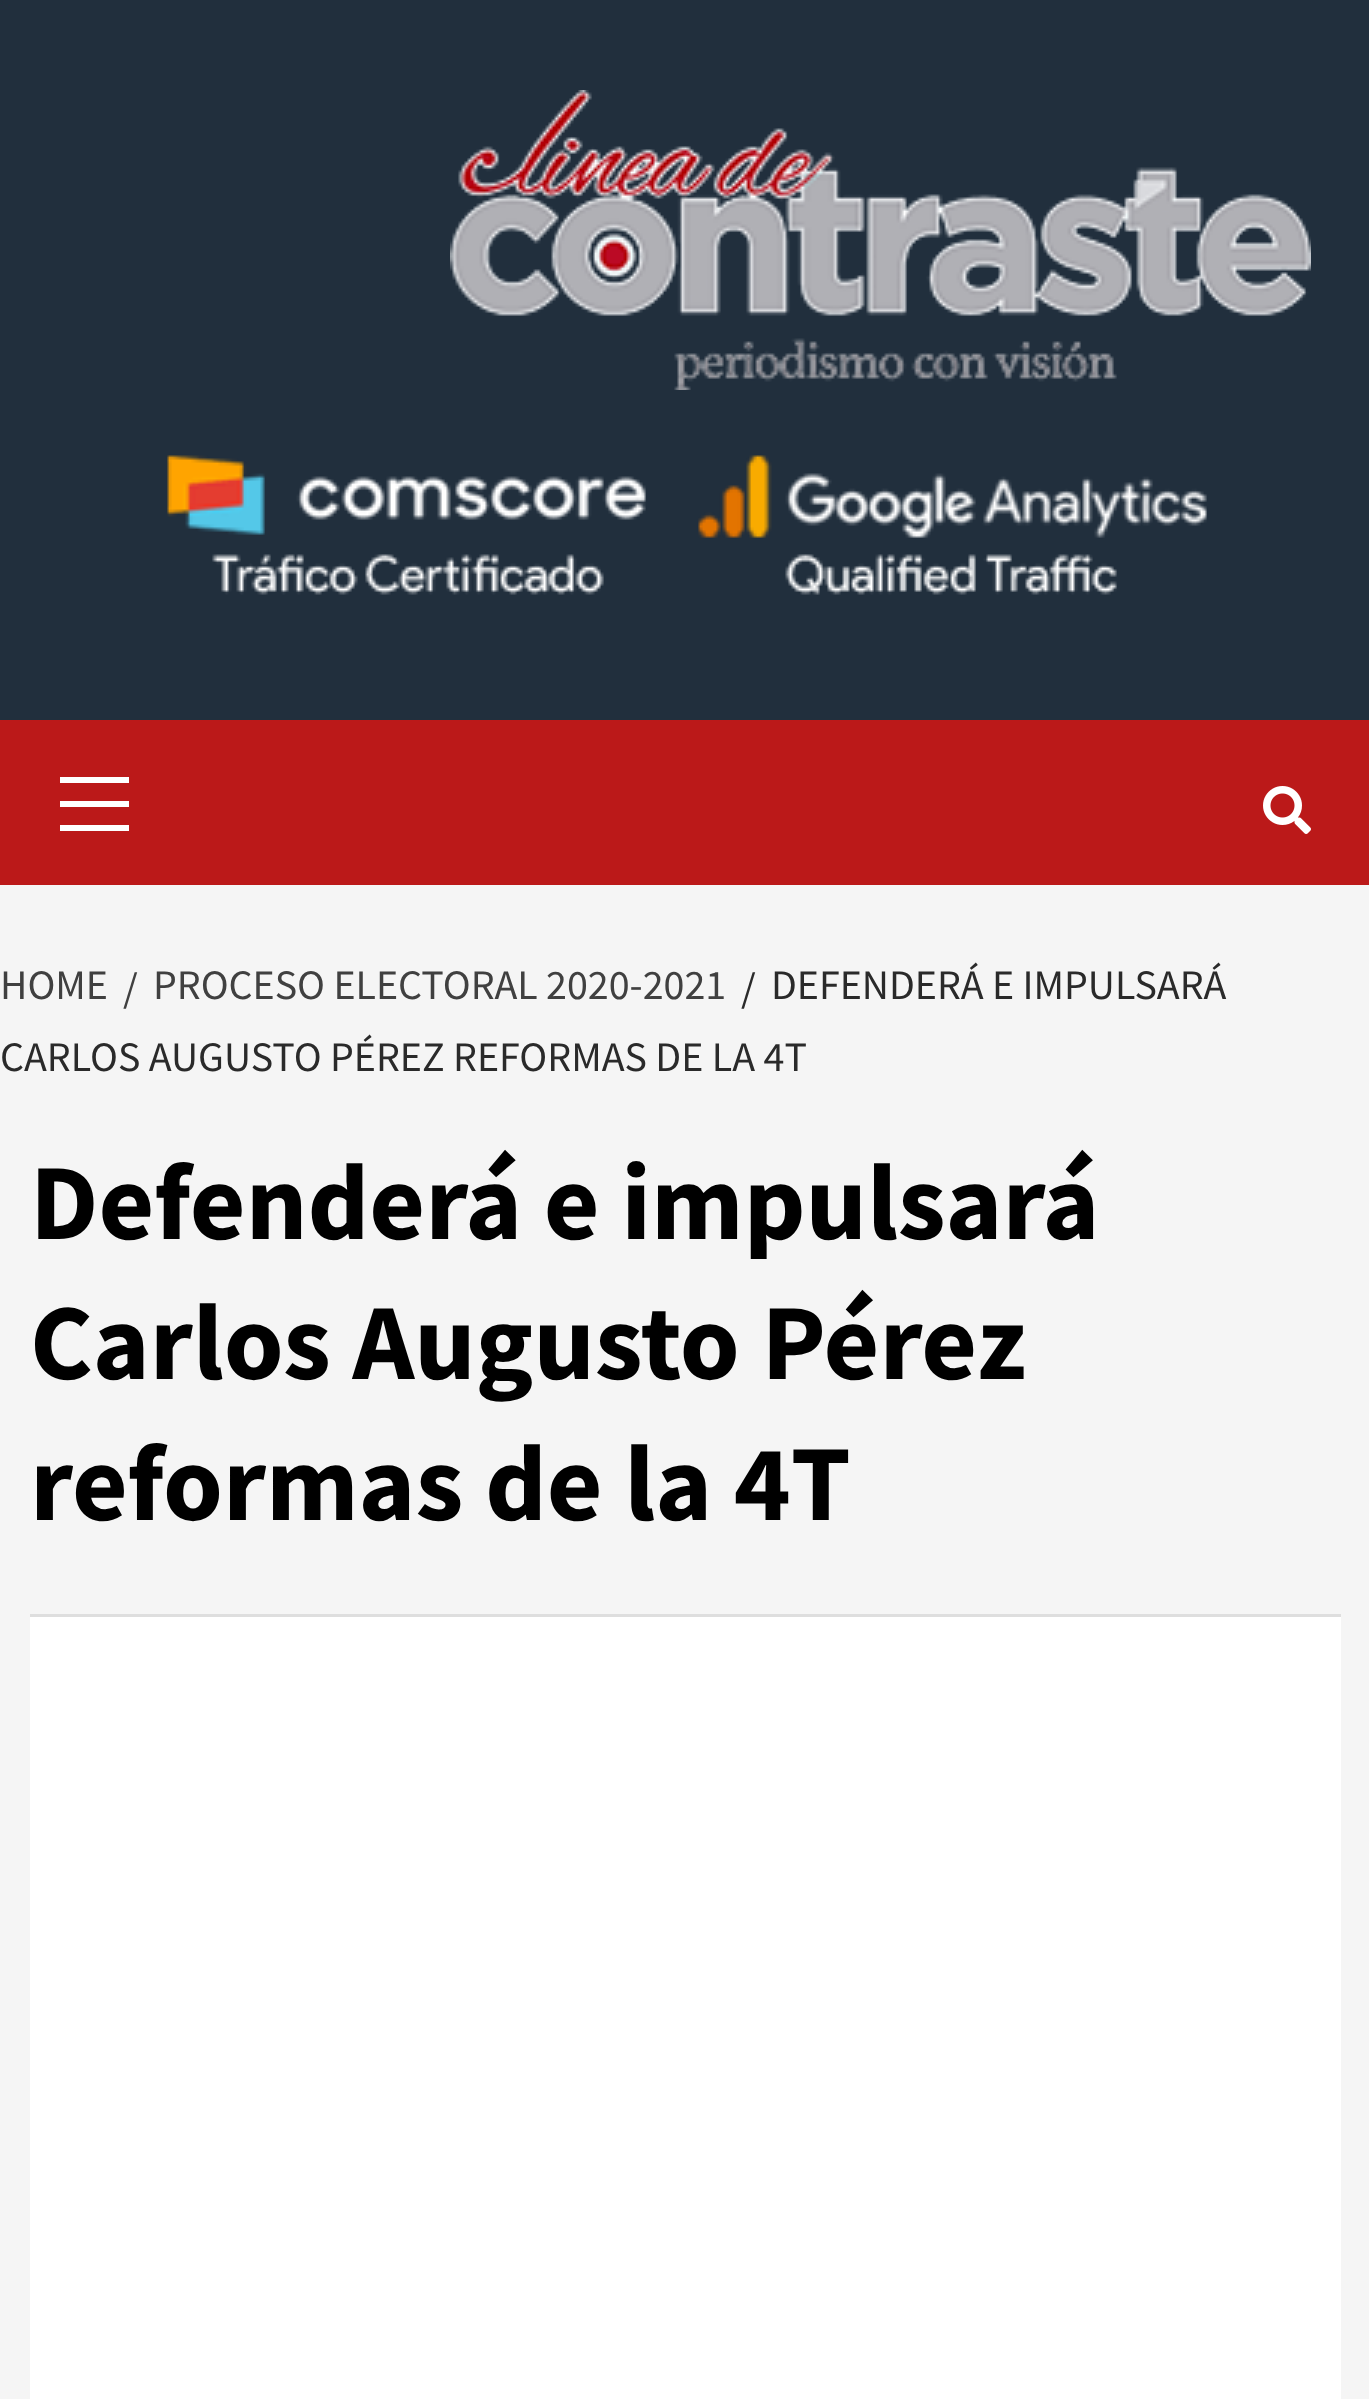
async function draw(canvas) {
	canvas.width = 1369;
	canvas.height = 2399;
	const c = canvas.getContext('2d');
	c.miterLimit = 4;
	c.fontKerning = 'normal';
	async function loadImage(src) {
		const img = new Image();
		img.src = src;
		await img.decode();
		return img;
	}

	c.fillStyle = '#f5f5f5';
	c.fillRect(0, 0, 1369, 2399);
	c.fillStyle = '#212f3d';
	c.fillRect(0, 0, 1369, 720);
	c.drawImage(await loadImage('img1.png'), 450, 90, 861, 300);
	c.drawImage(await loadImage('img2.png'), 167, 455, 1040, 140);
	for (const [x, y, w, h, color] of [
		[0, 720, 1369, 165, '#bb1919'],
		[60, 801, 69, 6, '#fff'],
		[60, 777, 69, 6, '#fff'],
		[60, 825, 69, 6, '#fff'],
	]) {
		c.fillStyle = color;
		c.fillRect(x, y, w, h);
	}
	c.drawImage(await loadImage('img3.png'), 1263, 786, 48, 48);
	c.font = '42px Source Sans Pro';
	c.fillStyle = '#2a2a2a';
	for (const [text, x, y] of [
		['/', 741, 1002],
		['DEFENDERÁ E IMPULSARÁ', 771, 999],
		['CARLOS AUGUSTO PÉREZ REFORMAS DE LA 4T', 0, 1071],
	]) {
		c.fillText(text, x, y);
	}
	c.fillStyle = '#404040';
	for (const [text, x, y] of [
		['HOME', 0, 999],
		['/', 123, 1002],
		['PROCESO ELECTORAL 2020-2021', 153, 999],
	]) {
		c.fillText(text, x, y);
	}
	c.fillStyle = '#fff';
	c.fillRect(30, 1617, 1311, 782);
	c.fillStyle = '#dedede';
	c.fillRect(30, 1614, 1311, 3);
	c.font = 'bold 108px Source Sans Pro';
	c.fillStyle = '#000';
	for (const [text, x, y] of [
		['Defenderá e impulsará', 30, 1239],
		['Carlos Augusto Pérez', 30, 1379],
		['reformas de la 4T', 30, 1520],
	]) {
		c.fillText(text, x, y);
	}
}

draw(document.querySelector('canvas'));
